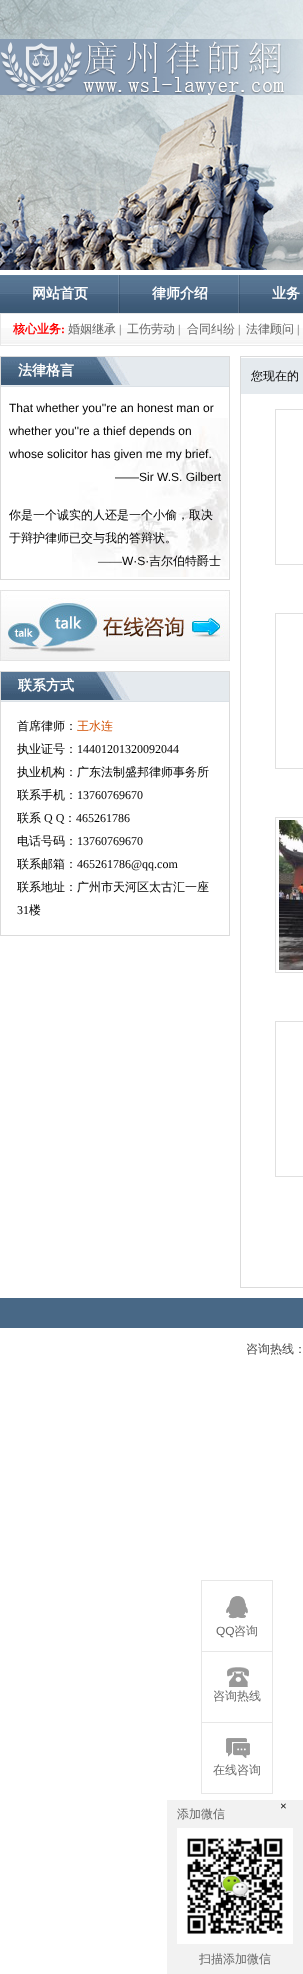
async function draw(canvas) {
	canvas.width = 303;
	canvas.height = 1974;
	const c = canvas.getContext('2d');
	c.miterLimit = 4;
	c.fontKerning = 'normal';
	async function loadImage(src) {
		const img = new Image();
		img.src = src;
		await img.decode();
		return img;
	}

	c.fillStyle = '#fff';
	c.fillRect(0, 0, 303, 1974);
	c.drawImage(await loadImage('img1.png'), 0, 0, 303, 270);
	c.drawImage(await loadImage('img2.png'), 0, 39, 303, 56);
	c.drawImage(await loadImage('img3.png'), 0, 275, 303, 38);
	c.drawImage(await loadImage('img4.png'), 118, 275, 2, 38);
	c.font = 'bold 14px WenQuanYi Zen Hei';
	c.fillText('网站首页', 32, 298);
	c.drawImage(await loadImage('img4.png'), 238, 275, 2, 38);
	c.fillText('律师介绍', 152, 298);
	c.fillText('业务', 272, 298);
	c.drawImage(await loadImage('img5.png'), 1, 328, 302, 16);
	c.strokeStyle = '#e8e8e8';
	c.strokeRect(0.5, 313.5, 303, 32);
	c.font = 'bold 12px WenQuanYi Zen Hei';
	c.fillStyle = '#f00';
	c.fillText('核心业务', 13, 333);
	c.font = 'bold 12px Liberation Serif';
	c.fillText(':', 61, 333);
	c.font = '500 12px WenQuanYi Zen Hei';
	c.fillStyle = '#666';
	c.fillText('婚姻继承', 68, 333);
	c.font = '12px Liberation Serif';
	c.fillText('|', 119, 333);
	c.font = '500 12px WenQuanYi Zen Hei';
	c.fillText('工伤劳动', 127, 333);
	c.font = '12px Liberation Serif';
	c.fillText('|', 178, 333);
	c.font = '500 12px WenQuanYi Zen Hei';
	c.fillText('合同纠纷', 187, 333);
	c.font = '12px Liberation Serif';
	c.fillText('|', 238, 333);
	c.font = '500 12px WenQuanYi Zen Hei';
	c.fillText('法律顾问', 246, 333);
	c.font = '12px Liberation Serif';
	c.fillText('|', 297, 333);
	c.strokeStyle = '#dbdbdb';
	c.strokeRect(0.5, 356.5, 229, 223);
	c.fillStyle = '#e5eaee';
	c.fillRect(1, 357, 228, 29);
	c.fillStyle = '#dbe1e6';
	c.fillRect(1, 386, 228, 1);
	c.drawImage(await loadImage('img6.png'), 1, 357, 129, 28);
	c.font = 'bold 14px WenQuanYi Zen Hei';
	c.fillStyle = '#fff';
	c.fillText('法律格言', 18, 375);
	c.drawImage(await loadImage('img7.png'), 72, 418, 157, 159);
	c.font = '12px Liberation Sans';
	c.fillStyle = '#000';
	for (const [text, x, y] of [
		['That whether you\'\'re an honest man or', 9, 412],
		['whether you\'\'re a thief depends on', 9, 435],
		['whose solicitor has given me my brief.', 9, 458],
		['——Sir W.S. Gilbert', 115, 481],
	]) {
		c.fillText(text, x, y);
	}
	c.font = '500 12px WenQuanYi Zen Hei';
	c.fillText('你是一个诚实的人还是一个小偷，取决', 9, 519);
	c.fillText('于辩护律师已交与我的答辩状。', 9, 542);
	c.font = '12px Liberation Serif';
	c.fillText('——', 98, 565);
	c.font = '12px Liberation Sans';
	c.fillText('W·S·', 122, 565);
	c.font = '500 12px WenQuanYi Zen Hei';
	c.fillText('吉尔伯特爵士', 149, 565);
	c.drawImage(await loadImage('img8.png'), 0, 590, 230, 71);
	c.strokeRect(0.5, 671.5, 229, 264);
	c.fillStyle = '#e5eaee';
	c.fillRect(1, 672, 228, 29);
	c.fillStyle = '#dbe1e6';
	c.fillRect(1, 701, 228, 1);
	c.drawImage(await loadImage('img6.png'), 1, 672, 129, 28);
	c.font = 'bold 14px WenQuanYi Zen Hei';
	c.fillStyle = '#fff';
	c.fillText('联系方式', 18, 690);
	c.font = '500 12px WenQuanYi Zen Hei';
	c.fillStyle = '#000';
	c.fillText('首席律师：', 17, 730);
	c.fillStyle = '#d25002';
	c.fillText('王水连', 77, 730);
	c.fillStyle = '#000';
	c.fillText('执业证号：', 17, 753);
	c.font = '12px Liberation Serif';
	c.fillText('14401201320092044', 77, 753);
	c.font = '500 12px WenQuanYi Zen Hei';
	c.fillText('执业机构：广东法制盛邦律师事务所', 17, 776);
	c.fillText('联系手机：', 17, 799);
	c.font = '12px Liberation Serif';
	c.fillText('13760769670', 77, 799);
	c.font = '500 12px WenQuanYi Zen Hei';
	c.fillText('联系', 17, 822);
	c.font = '12px Liberation Serif';
	c.fillText('Q Q', 44, 822);
	c.font = '500 12px WenQuanYi Zen Hei';
	c.fillText('：', 64, 822);
	c.font = '12px Liberation Serif';
	c.fillText('465261786', 76, 822);
	c.font = '500 12px WenQuanYi Zen Hei';
	c.fillText('电话号码：', 17, 845);
	c.font = '12px Liberation Serif';
	c.fillText('13760769670', 77, 845);
	c.font = '500 12px WenQuanYi Zen Hei';
	c.fillText('联系邮箱：', 17, 868);
	c.font = '12px Liberation Serif';
	c.fillText('465261786@qq.com', 77, 868);
	c.font = '500 12px WenQuanYi Zen Hei';
	c.fillText('联系地址：广州市天河区太古汇一座', 17, 891);
	c.font = '12px Liberation Serif';
	c.fillText('31', 17, 914);
	c.font = '500 12px WenQuanYi Zen Hei';
	c.fillText('楼', 29, 914);
	c.strokeRect(240.5, 356.5, 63, 931);
	c.fillStyle = '#e5eaee';
	c.fillRect(241, 358, 62, 36);
	c.fillStyle = '#000';
	c.fillText('您现在的', 251, 380);
	c.strokeStyle = '#e0e0e0';
	c.strokeRect(275.5, 409.5, 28, 155);
	c.strokeRect(275.5, 613.5, 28, 155);
	c.strokeRect(275.5, 817.5, 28, 155);
	c.drawImage(await loadImage('img9.png'), 279, 820, 24, 150);
	c.strokeRect(275.5, 1021.5, 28, 155);
	c.fillStyle = '#486886';
	c.fillRect(0, 1298, 303, 30);
	c.fillStyle = '#444';
	c.fillText('咨询热线：', 246, 1353);
	for (const [x, y, w, h, color] of [
		[201, 1580, 72, 1, '#e7e7e7'],
		[272, 1580, 1, 214, '#e7e7e7'],
		[201, 1580, 1, 214, '#e7e7e7'],
		[202, 1651, 70, 1, '#e7e7e7'],
	]) {
		c.fillStyle = color;
		c.fillRect(x, y, w, h);
	}
	c.drawImage(await loadImage('img10.png'), 226, 1596, 22, 23);
	c.font = '12px Liberation Sans';
	c.fillStyle = '#666';
	c.fillText('QQ', 216, 1635);
	c.font = '500 12px WenQuanYi Zen Hei';
	c.fillText('咨询', 234, 1635);
	c.fillStyle = '#e7e7e7';
	c.fillRect(202, 1722, 70, 1);
	c.drawImage(await loadImage('img11.png'), 227, 1667, 22, 20);
	c.fillStyle = '#666';
	c.fillText('咨询热线', 213, 1700);
	c.fillStyle = '#e7e7e7';
	c.fillRect(202, 1793, 70, 1);
	c.drawImage(await loadImage('img12.png'), 226, 1738, 24, 20);
	c.fillStyle = '#666';
	c.fillText('在线咨询', 213, 1774);
	c.fillStyle = '#f2f2f2';
	c.fillRect(167, 1800, 136, 174);
	c.font = 'bold 12px Liberation Serif';
	c.fillStyle = '#000';
	c.fillText('×', 280, 1810);
	c.font = '500 12px WenQuanYi Zen Hei';
	c.fillStyle = '#666';
	c.fillText('添加微信', 177, 1818);
	c.fillStyle = '#fff';
	c.fillRect(177, 1828, 116, 116);
	c.drawImage(await loadImage('img13.png'), 187, 1838, 96, 96);
	c.fillStyle = '#666';
	c.fillText('扫描添加微信', 199, 1963);
}

draw(document.querySelector('canvas'));
